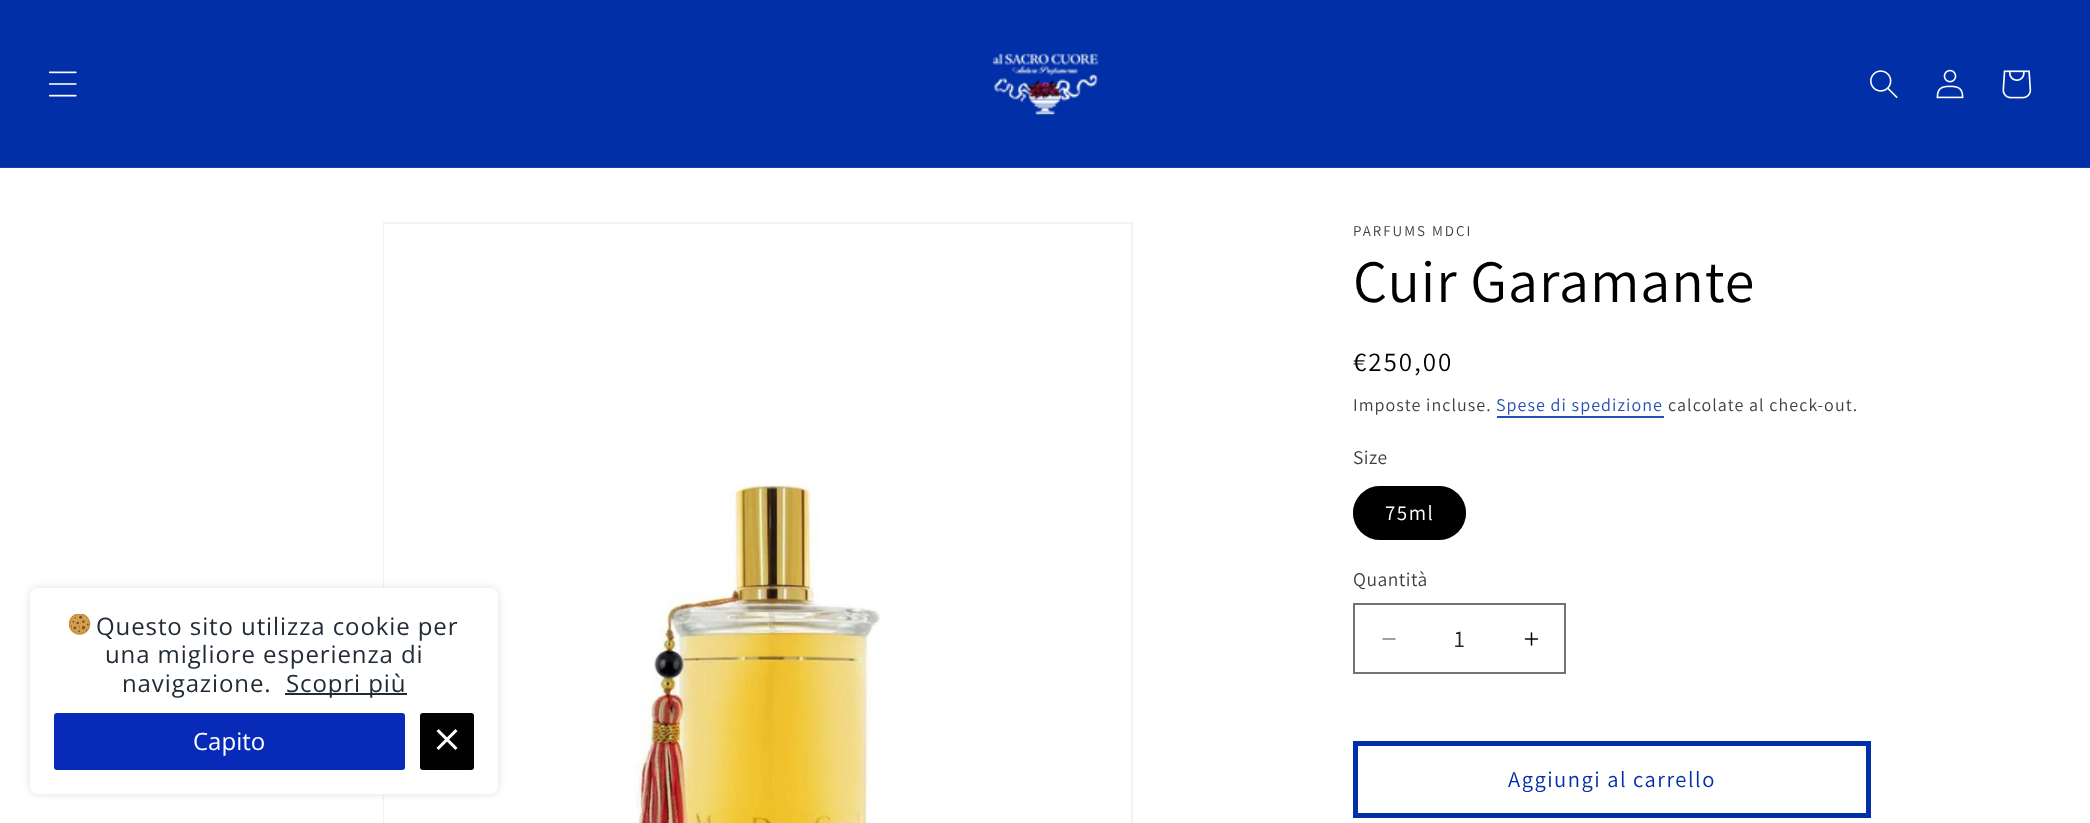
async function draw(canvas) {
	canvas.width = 2090;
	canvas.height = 823;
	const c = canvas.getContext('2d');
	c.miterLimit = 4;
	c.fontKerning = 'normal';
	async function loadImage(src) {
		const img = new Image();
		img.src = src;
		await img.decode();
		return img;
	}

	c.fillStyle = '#002fa7';
	c.fillRect(0, 0, 2090, 823);
	c.fillStyle = '#1440ae';
	c.fillRect(0, 167, 2090, 1);
	c.drawImage(await loadImage('img1.png'), 48, 71, 29, 26);
	c.drawImage(await loadImage('img2.png'), 992, 53, 107, 62);
	c.drawImage(await loadImage('img3.png'), 1870, 70, 28, 28);
	c.drawImage(await loadImage('img4.png'), 1936, 69, 28, 30);
	c.drawImage(await loadImage('img5.png'), 2002, 70, 30, 29);
	c.fillStyle = '#fff';
	c.fillRect(0, 168, 2090, 655);
	c.strokeStyle = '#f2f2f2';
	c.lineWidth = 2;
	c.strokeRect(384, 223, 748, 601);
	c.drawImage(await loadImage('img8.png'), 384, 224, 497, 599);
	c.beginPath();
	c.roundRect(30, 588, 468, 206, 8);
	c.fill();
	c.save();
	c.beginPath();
	c.moveTo(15, 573);
	c.lineTo(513, 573);
	c.lineTo(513, 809);
	c.lineTo(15, 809);
	c.closePath();
	c.moveTo(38, 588);
	c.lineTo(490, 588);
	c.bezierCurveTo(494.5, 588, 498, 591.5, 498, 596);
	c.lineTo(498, 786);
	c.bezierCurveTo(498, 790.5, 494.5, 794, 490, 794);
	c.lineTo(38, 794);
	c.bezierCurveTo(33.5, 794, 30, 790.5, 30, 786);
	c.lineTo(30, 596);
	c.bezierCurveTo(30, 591.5, 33.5, 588, 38, 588);
	c.closePath();
	c.clip('evenodd');
	c.fillStyle = '#0000001f';
	c.filter = 'blur(4.5px)';
	c.beginPath();
	c.roundRect(30, 588, 468, 206, 8);
	c.fill();
	c.filter = 'none';
	c.restore();
	c.drawImage(await loadImage('img6.png'), 69, 614, 22, 21);
	c.letterSpacing = '0.9px';
	c.font = '24px Open Sans';
	c.fillStyle = '#212b36';
	for (const [text, x, y] of [
		['Questo sito utilizza cookie per', 96, 635],
		['una migliore esperienza di', 105, 663],
		['navigazione.', 122, 692],
	]) {
		c.fillText(text, x, y);
	}
	c.fillRect(285, 693, 122, 2);
	c.fillText('Scopri più', 286, 692);
	c.fillStyle = '#072bb8';
	c.beginPath();
	c.roundRect(54, 713, 351, 57, 3);
	c.fill();
	c.letterSpacing = '0px';
	c.fillStyle = '#fff';
	c.fillText('Capito', 193, 750);
	c.fillStyle = '#020202';
	c.beginPath();
	c.roundRect(420, 713, 54, 57, 3);
	c.fill();
	c.drawImage(await loadImage('img7.png'), 436, 729, 22, 21);
	c.letterSpacing = '2px';
	c.font = '15px Assistant';
	c.fillStyle = '#404040';
	c.fillText('PARFUMS MDCI', 1353, 236);
	c.letterSpacing = '0.9px';
	c.font = '60px Assistant';
	c.fillStyle = '#000';
	c.fillText('Cuir Garamante', 1353, 302);
	c.letterSpacing = '2px';
	c.font = '27px Assistant';
	c.fillText('€250,00', 1353, 371);
	c.letterSpacing = '1.05px';
	c.font = '18px Assistant';
	c.fillStyle = '#404040';
	c.fillText('Imposte incluse.', 1353, 411);
	c.fillStyle = '#264eb4';
	c.fillText('Spese di spedizione', 1496, 411);
	c.fillRect(1497, 416, 167, 2);
	c.fillStyle = '#404040';
	c.fillText('calcolate al check-out.', 1668, 411);
	c.letterSpacing = '0.5px';
	c.font = '19.5px Assistant';
	c.fillText('Size', 1353, 464);
	c.fillStyle = '#000';
	c.beginPath();
	c.roundRect(1353, 486, 113, 54, 27);
	c.fill();
	c.beginPath();
	c.roundRect(1354, 487, 111, 52, 26);
	c.strokeStyle = '#0000008c';
	c.stroke();
	c.letterSpacing = '1.5px';
	c.font = '21px Assistant';
	c.fillStyle = '#fff';
	c.fillText('75ml', 1385, 520);
	c.letterSpacing = '0.5px';
	c.font = '19.5px Assistant';
	c.fillStyle = '#404040';
	c.fillText('Quantità', 1353, 586);
	c.drawImage(await loadImage('img9.png'), 1382, 638, 14, 2);
	c.drawImage(await loadImage('img10.png'), 1524, 632, 15, 14);
	c.strokeStyle = '#737373';
	c.strokeRect(1354, 604, 211, 69);
	c.letterSpacing = '0px';
	c.font = '24px Assistant';
	c.fillStyle = '#262626';
	c.fillText('1', 1454, 647);
	c.strokeStyle = '#002fa7';
	c.lineWidth = 5;
	c.strokeRect(1355.5, 743.5, 513, 72);
	c.letterSpacing = '1.5px';
	c.font = '22.5px Assistant';
	c.fillStyle = '#002fa7';
	c.fillText('Aggiungi al carrello', 1508, 787);
}

draw(document.querySelector('canvas'));
